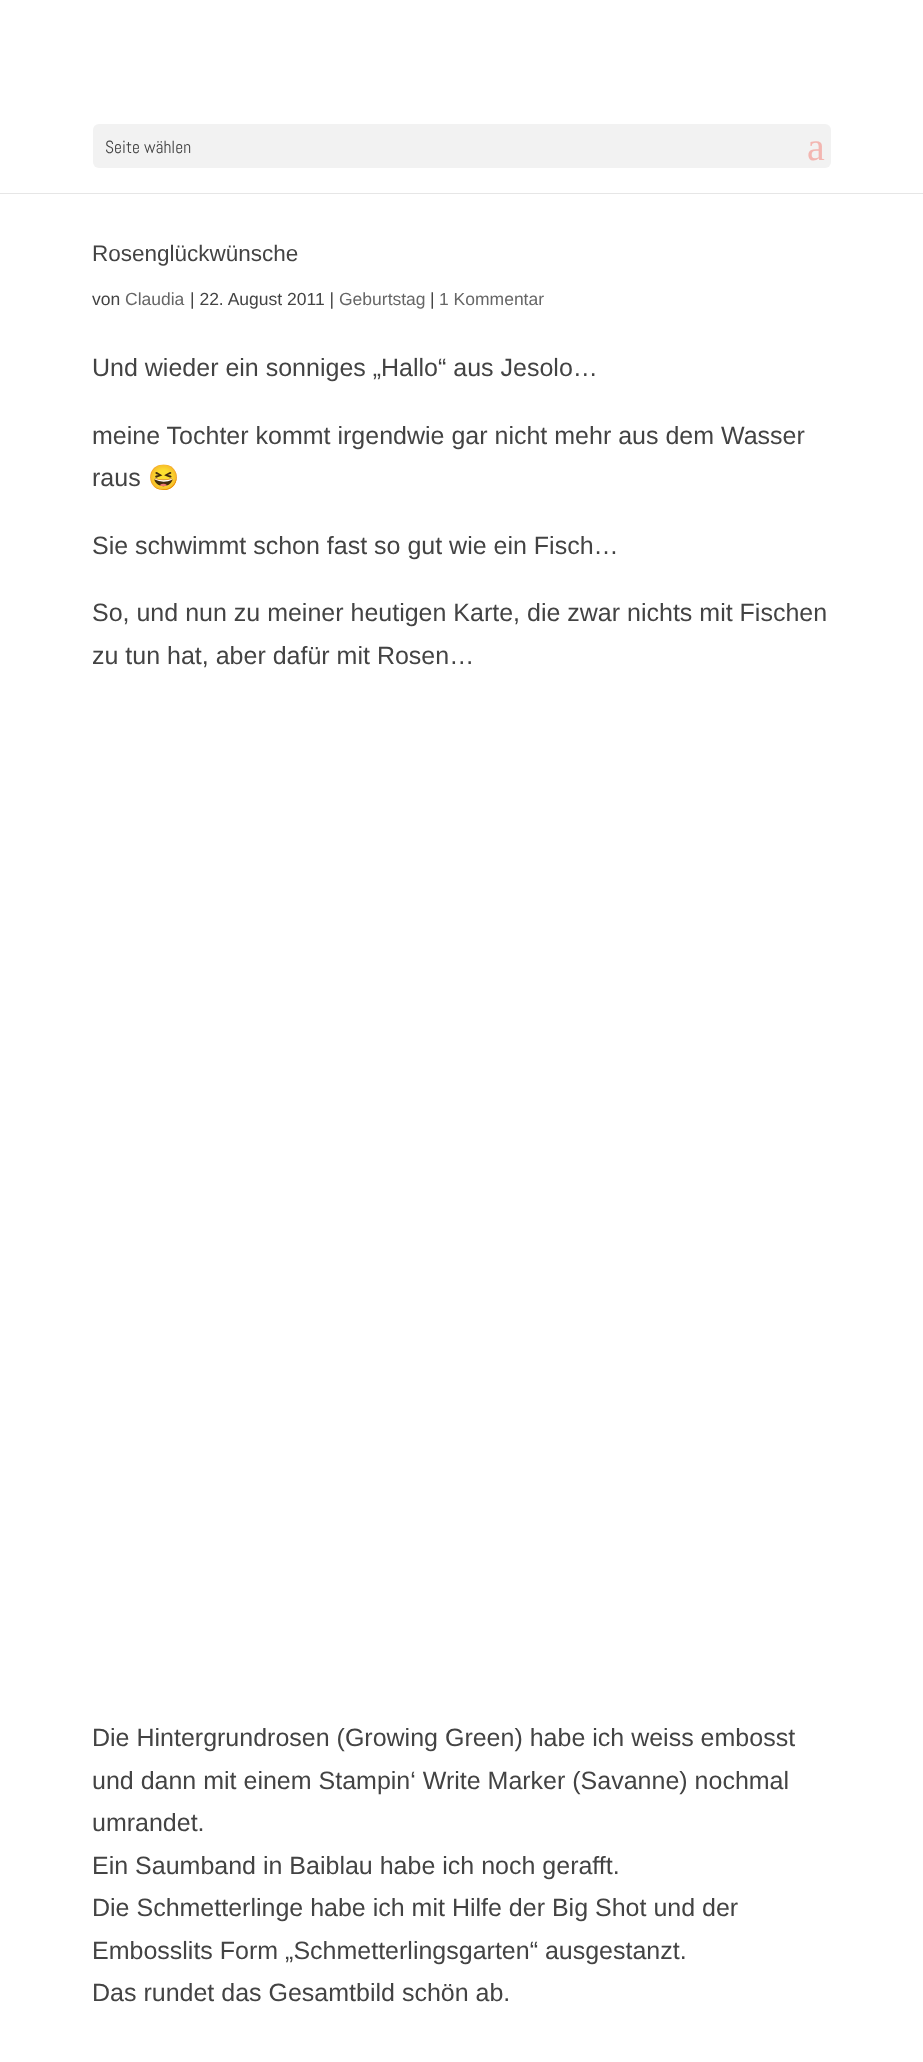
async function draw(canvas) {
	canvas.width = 923;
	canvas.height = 2062;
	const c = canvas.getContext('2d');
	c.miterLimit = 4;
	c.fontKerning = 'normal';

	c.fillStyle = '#fff';
	c.fillRect(0, 0, 923, 2062);
	c.fillStyle = '#e6e6e6';
	c.beginPath();
	c.moveTo(0, 192);
	c.lineTo(0, 194);
	c.lineTo(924, 194);
	c.lineTo(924, 1);
	c.lineTo(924, 192);
	c.closePath();
	c.fill();
	c.fillStyle = '#fff';
	c.fillRect(0, 192, 923, 1);
	c.fillStyle = '#f2f2f2';
	c.beginPath();
	c.roundRect(93, 124, 738, 44, 6);
	c.fill();
	c.font = '17.5px Abel';
	c.fillStyle = '#434343';
	c.fillText('Seite wählen', 105, 153);
	c.font = '40px Liberation Serif';
	c.fillStyle = '#f3b6b1';
	c.fillText('a', 807, 160);
	c.font = '22.5px Liberation Sans';
	c.fillStyle = '#434343';
	c.fillText('Rosenglückwünsche', 92, 261);
	c.font = '17.5px Liberation Sans';
	c.fillText('von', 92, 305);
	c.fillStyle = '#666';
	c.fillText('Claudia', 125, 305);
	c.fillStyle = '#434343';
	c.fillText('| 22. August 2011 |', 190, 305);
	c.fillStyle = '#666';
	c.fillText('Geburtstag', 339, 305);
	c.fillStyle = '#434343';
	c.fillText('|', 430, 305);
	c.fillStyle = '#666';
	c.fillText('1 Kommentar', 439, 305);
	c.font = '25px Liberation Sans';
	c.fillStyle = '#434343';
	for (const [text, x, y] of [
		['Und wieder ein sonniges „Hallo“ aus Jesolo…', 92, 376],
		['meine Tochter kommt irgendwie gar nicht mehr aus dem Wasser', 92, 444],
		['raus', 92, 486],
	]) {
		c.fillText(text, x, y);
	}
	c.font = '25px Noto Color Emoji';
	c.fillText('😆', 148, 486);
	c.font = '25px Liberation Sans';
	for (const [text, x, y] of [
		['Sie schwimmt schon fast so gut wie ein Fisch…', 92, 554],
		['So, und nun zu meiner heutigen Karte, die zwar nichts mit Fischen', 92, 621],
		['zu tun hat, aber dafür mit Rosen…', 92, 664],
		['Die Hintergrundrosen (Growing Green) habe ich weiss embosst', 92, 1746],
		['und dann mit einem Stampin‘ Write Marker (Savanne) nochmal', 92, 1789],
		['umrandet.', 92, 1831],
		['Ein Saumband in Baiblau habe ich noch gerafft.', 92, 1874],
		['Die Schmetterlinge habe ich mit Hilfe der Big Shot und der', 92, 1916],
		['Embosslits Form „Schmetterlingsgarten“ ausgestanzt.', 92, 1959],
		['Das rundet das Gesamtbild schön ab.', 92, 2001],
	]) {
		c.fillText(text, x, y);
	}
}

draw(document.querySelector('canvas'));
